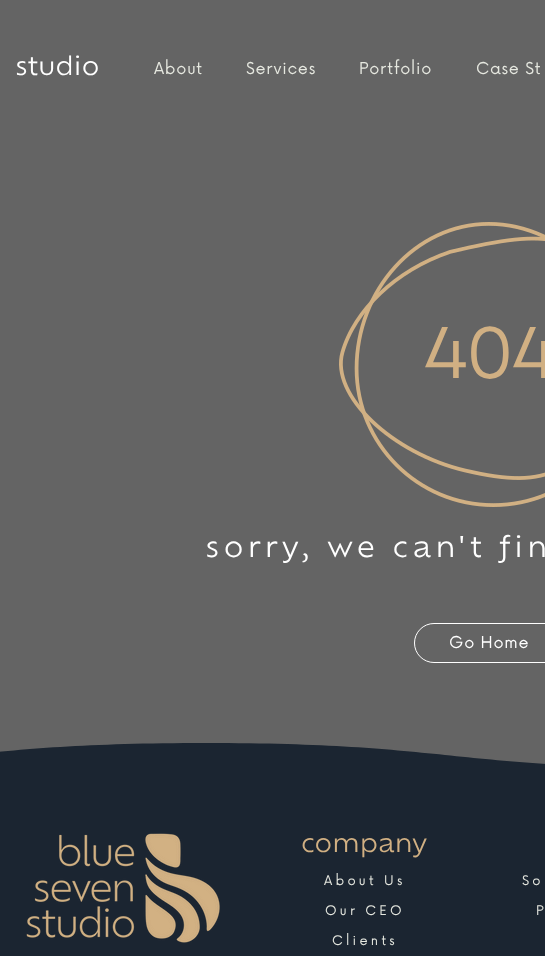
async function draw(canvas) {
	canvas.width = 545;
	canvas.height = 956;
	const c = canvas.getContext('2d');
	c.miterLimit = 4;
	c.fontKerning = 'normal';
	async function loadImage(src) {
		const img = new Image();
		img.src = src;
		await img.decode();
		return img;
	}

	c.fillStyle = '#646464';
	c.fillRect(0, 0, 545, 956);
	c.font = '25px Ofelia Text';
	c.fillStyle = '#fff';
	c.fillText('studio', 15, 75);
	c.letterSpacing = '0.75px';
	c.font = '16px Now';
	c.fillStyle = '#e6e8e0';
	for (const [text, x, y] of [
		['About', 154, 74],
		['Services', 246, 74],
		['Portfolio', 359, 74],
		['Case St', 476, 74],
	]) {
		c.fillText(text, x, y);
	}
	c.drawImage(await loadImage('img1.png'), 339, 222, 206, 285);
	c.letterSpacing = '0px';
	c.font = '68px Ofelia Text';
	c.fillStyle = '#d1b083';
	c.fillText('404', 423, 378);
	c.letterSpacing = '4.25px';
	c.font = '28px Ofelia Text';
	c.fillStyle = '#fff';
	c.fillText('sorry, we can\'t fin', 205, 557);
	c.beginPath();
	c.roundRect(414.5, 623.5, 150, 39, 19.5);
	c.strokeStyle = '#fff';
	c.stroke();
	c.letterSpacing = '0.75px';
	c.font = '16px Now';
	c.fillText('Go Home', 449, 648);
	c.drawImage(await loadImage('img2.png'), 0, 743, 545, 27);
	c.fillStyle = '#1b2531';
	c.fillRect(0, 770, 545, 186);
	c.drawImage(await loadImage('img3.png'), 26, 833, 194, 110);
	c.letterSpacing = '0px';
	c.font = '25px Ofelia Text';
	c.fillStyle = '#d1b083';
	c.fillText('company', 301, 852);
	c.letterSpacing = '3.25px';
	c.font = '13px Now';
	c.fillStyle = '#e6e8e0';
	for (const [text, x, y] of [
		['About Us', 324, 885],
		['Our CEO', 325, 915],
		['Clients', 332, 945],
		['So', 522, 885],
		['P', 536, 915],
	]) {
		c.fillText(text, x, y);
	}
}

draw(document.querySelector('canvas'));
